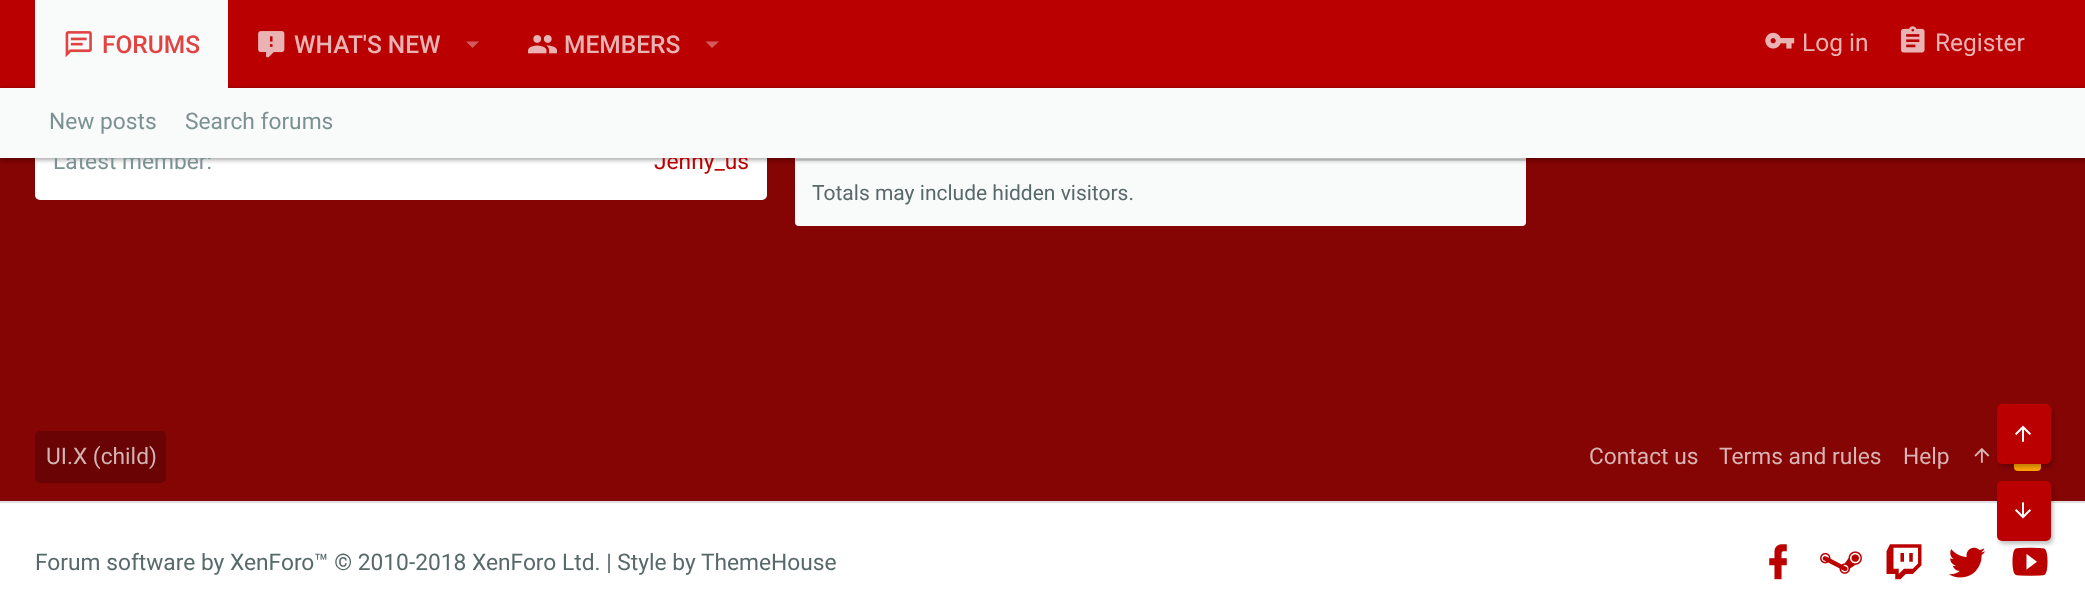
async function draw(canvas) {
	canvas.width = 2085;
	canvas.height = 592;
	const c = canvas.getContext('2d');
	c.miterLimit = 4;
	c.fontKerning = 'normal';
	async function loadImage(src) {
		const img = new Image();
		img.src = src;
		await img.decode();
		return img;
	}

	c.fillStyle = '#850505';
	c.fillRect(0, 0, 2085, 592);
	c.fillStyle = '#fff';
	c.beginPath();
	c.roundRect(35, -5, 732, 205, 5);
	c.fill();
	c.beginPath();
	c.roundRect(795, -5, 731, 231, 5);
	c.fill();
	c.fillStyle = '#ba0000';
	c.fillRect(0, 0, 2085, 88);
	c.fillStyle = '#f9fafa';
	c.beginPath();
	c.roundRect(795, 159, 731, 67, [0, 0, 4, 4]);
	c.fill();
	c.fillStyle = '#e0e0e0';
	c.fillRect(795, 159, 731, 2);
	c.fillStyle = '#00000033';
	c.filter = 'blur(2.5px)';
	c.beginPath();
	c.rect(0, 89, 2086, 70);
	c.fill();
	c.filter = 'none';
	c.fillStyle = '#0000001f';
	c.filter = 'blur(2px)';
	c.beginPath();
	c.rect(0, 91, 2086, 70);
	c.fill();
	c.filter = 'none';
	c.fillStyle = '#00000024';
	c.filter = 'blur(2px)';
	c.beginPath();
	c.rect(0, 88, 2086, 70);
	c.fill();
	c.filter = 'none';
	c.fillStyle = '#f9fafa';
	c.fillRect(35, 0, 193, 88);
	c.drawImage(await loadImage('img1.png'), 65, 31, 27, 27);
	c.font = '500 24.5px Roboto';
	c.fillStyle = '#e14343';
	c.fillText('FORUMS', 102, 53);
	c.drawImage(await loadImage('img2.png'), 258, 31, 27, 27);
	c.fillStyle = '#eab3b3';
	c.fillText('WHAT\'S NEW', 294, 53);
	c.fillStyle = '#d35a5a';
	c.beginPath();
	c.moveTo(466, 41.5);
	c.lineTo(472.5, 48);
	c.lineTo(479, 41.5);
	c.closePath();
	c.fill();
	c.drawImage(await loadImage('img3.png'), 528, 35, 29, 19);
	c.fillStyle = '#eab3b3';
	c.fillText('MEMBERS', 564, 53);
	c.fillStyle = '#d35a5a';
	c.beginPath();
	c.moveTo(705.5, 41.5);
	c.lineTo(712, 48);
	c.lineTo(719, 41.5);
	c.closePath();
	c.fill();
	c.drawImage(await loadImage('img4.png'), 1765, 32, 30, 17);
	c.font = '24.5px Roboto';
	c.fillStyle = '#eab3b3';
	c.fillText('Log in', 1802, 51);
	c.drawImage(await loadImage('img5.png'), 1900, 26, 25, 27);
	c.fillText('Register', 1935, 51);
	c.font = '22.75px Roboto';
	c.fillStyle = '#7c9292';
	c.fillText('Latest member:', 53, 169);
	c.fillStyle = '#ba0000';
	c.fillText('Jenny_us', 654, 169);
	c.fillStyle = '#f9fafa';
	c.fillRect(0, 88, 2085, 70);
	c.fillStyle = '#7c9292';
	c.fillText('New posts', 49, 129);
	c.fillText('Search forums', 185, 129);
	c.font = '21px Roboto';
	c.fillStyle = '#586969';
	c.fillText('Totals may include hidden visitors.', 812, 200);
	c.fillStyle = '#6a0404';
	c.beginPath();
	c.roundRect(35, 431, 131, 52, 5);
	c.fill();
	c.font = '22.75px Roboto';
	c.fillStyle = '#d2b4b4';
	c.fillText('UI.X (child)', 46, 464);
	c.fillStyle = '#dab4b4';
	for (const [text, x, y] of [
		['Contact us', 1589, 464],
		['Terms and rules', 1719, 464],
		['Help', 1903, 464],
	]) {
		c.fillText(text, x, y);
	}
	c.drawImage(await loadImage('img6.png'), 1974, 447, 16, 16);
	c.fillStyle = '#ffa500';
	c.beginPath();
	c.roundRect(2014, 445, 27, 26, 4);
	c.fill();
	c.fillStyle = '#fff';
	c.fillRect(0, 503, 2085, 89);
	c.fillStyle = '#e0e0e0';
	c.fillRect(0, 501, 2085, 2);
	c.fillStyle = '#586969';
	c.fillText('Forum software by XenForo™ © 2010-2018 XenForo Ltd. | Style by ThemeHouse', 35, 570);
	c.drawImage(await loadImage('img7.png'), 1769, 544, 18, 36);
	c.drawImage(await loadImage('img8.png'), 1820, 551, 42, 23);
	c.drawImage(await loadImage('img9.png'), 1886, 544, 36, 36);
	c.drawImage(await loadImage('img10.png'), 1948, 547, 38, 31);
	c.drawImage(await loadImage('img11.png'), 2012, 547, 36, 29);
	c.fillStyle = '#00000040';
	c.filter = 'blur(2px)';
	c.beginPath();
	c.roundRect(1999, 408, 54, 59, 5);
	c.fill();
	c.filter = 'none';
	c.fillStyle = '#ba0000';
	c.beginPath();
	c.roundRect(1997, 404, 54, 60, 5);
	c.fill();
	c.drawImage(await loadImage('img12.png'), 2015, 425, 16, 17);
	c.fillStyle = '#00000040';
	c.filter = 'blur(2px)';
	c.beginPath();
	c.roundRect(1999, 485, 54, 59, 5);
	c.fill();
	c.filter = 'none';
	c.fillStyle = '#ba0000';
	c.beginPath();
	c.roundRect(1997, 481, 54, 60, 5);
	c.fill();
	c.drawImage(await loadImage('img13.png'), 2015, 502, 16, 17);
}

draw(document.querySelector('canvas'));
